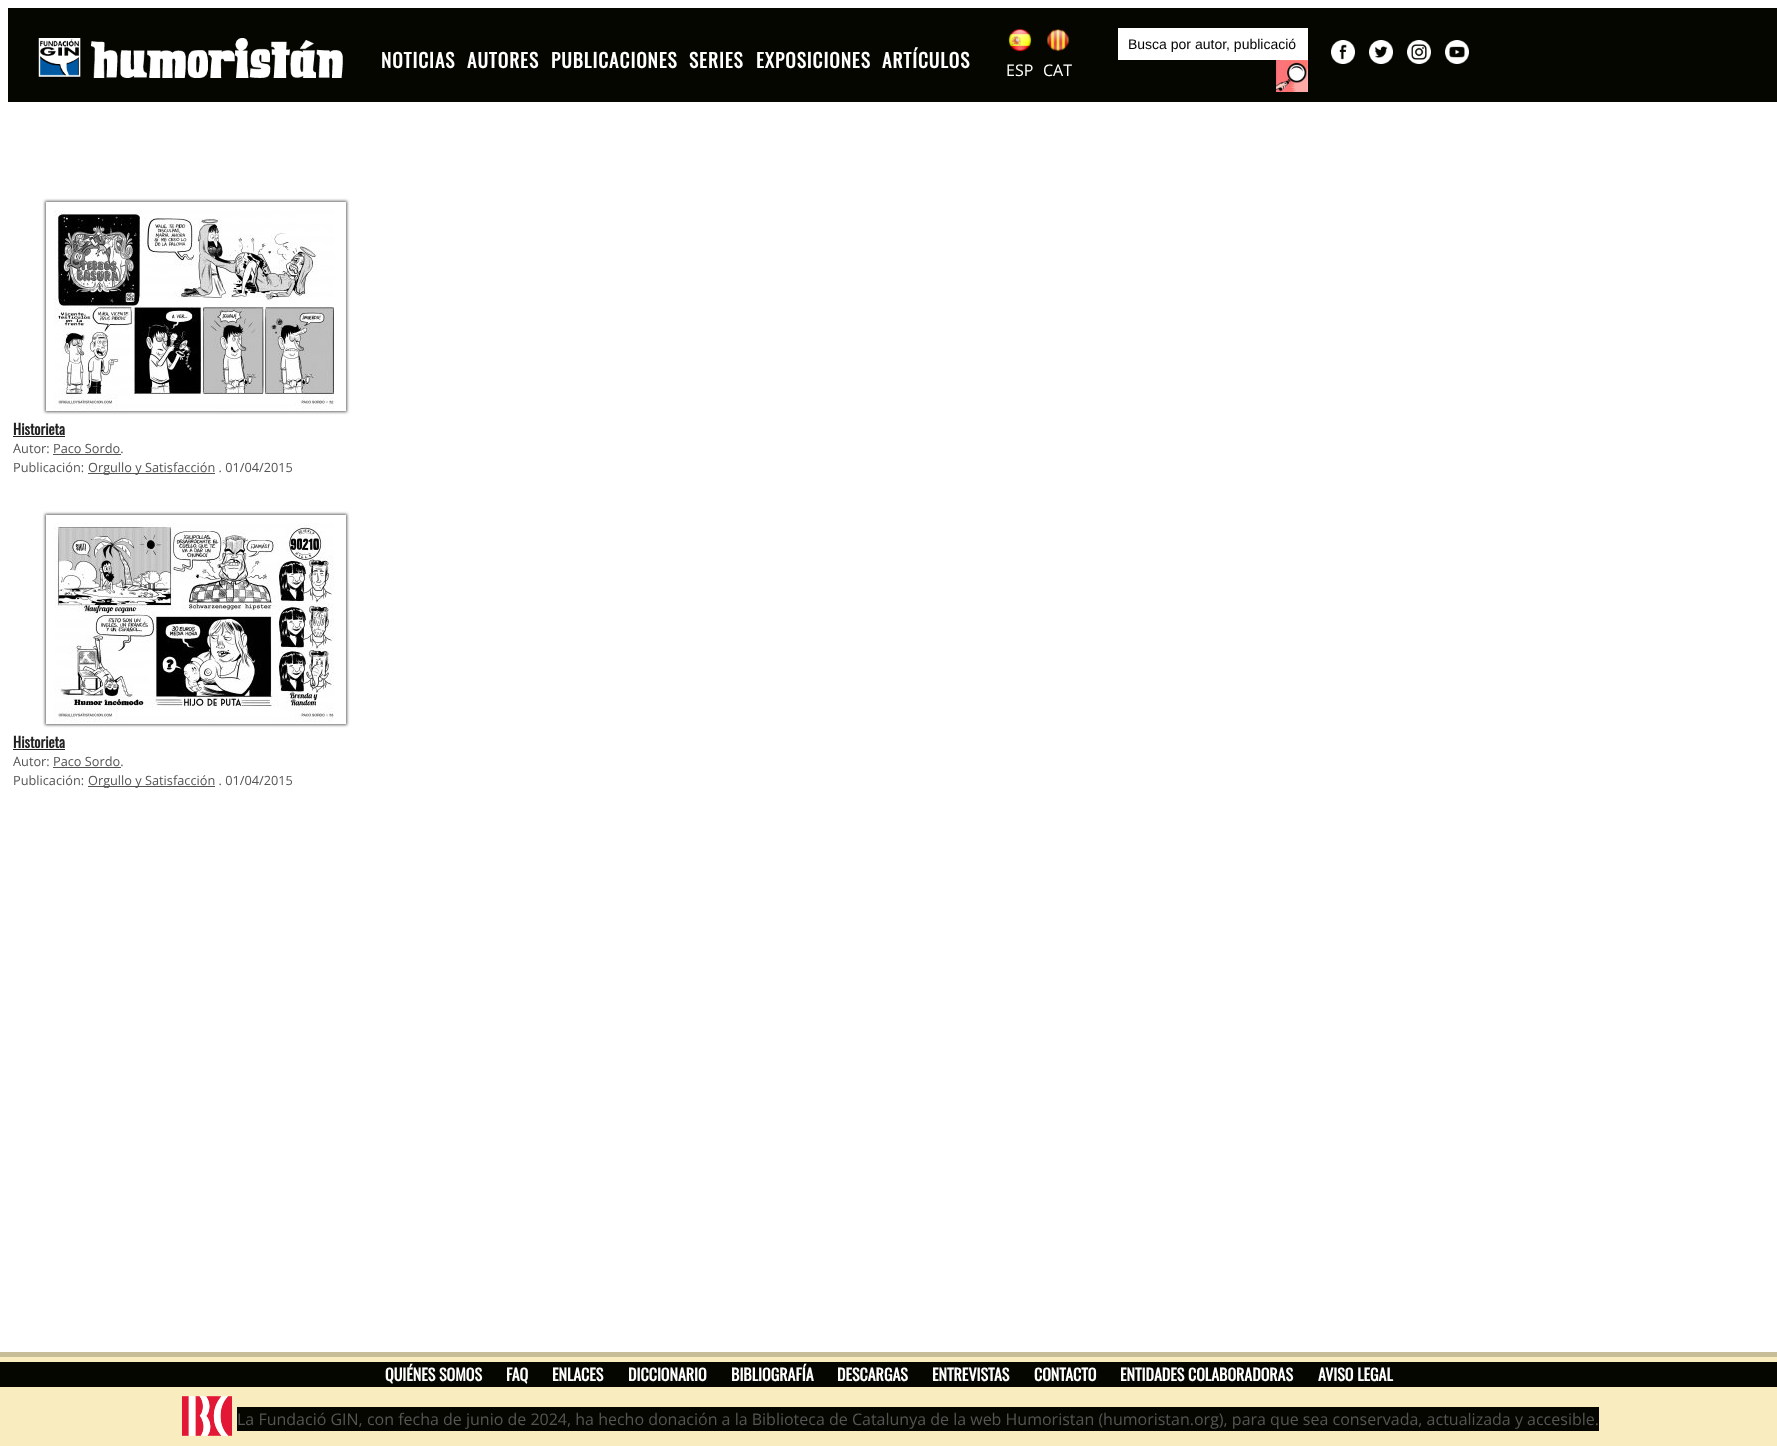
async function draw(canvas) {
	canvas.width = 1777;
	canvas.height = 1446;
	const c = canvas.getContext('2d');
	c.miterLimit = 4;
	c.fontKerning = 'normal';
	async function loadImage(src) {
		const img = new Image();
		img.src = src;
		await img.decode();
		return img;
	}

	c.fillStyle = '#fff';
	c.fillRect(0, 0, 1777, 1446);
	c.fillStyle = '#060600';
	c.fillRect(8, 8, 1769, 94);
	c.drawImage(await loadImage('img1.png'), 38, 38, 43, 40);
	c.drawImage(await loadImage('img2.png'), 91, 38, 252, 40);
	c.letterSpacing = '1px';
	c.font = 'bold 19.25px Oswald';
	c.fillStyle = '#fff';
	for (const [text, x, y] of [
		['NOTICIAS', 381, 68],
		['AUTORES', 467, 68],
		['PUBLICACIONES', 551, 68],
		['SERIES', 689, 68],
		['EXPOSICIONES', 756, 68],
		['ARTÍCULOS', 882, 68],
	]) {
		c.fillText(text, x, y);
	}
	c.fillRect(1118, 28, 190, 32);
	c.letterSpacing = '0px';
	c.font = '14px Liberation Sans';
	c.fillStyle = '#000';
	c.fillText('Busca por autor, publicació', 1128, 49);
	c.drawImage(await loadImage('img3.png'), 1276, 60, 32, 32);
	c.drawImage(await loadImage('img4.png'), 1331, 40, 24, 24);
	c.drawImage(await loadImage('img5.png'), 1369, 40, 24, 24);
	c.drawImage(await loadImage('img6.png'), 1407, 40, 24, 24);
	c.drawImage(await loadImage('img7.png'), 1445, 40, 24, 24);
	c.drawImage(await loadImage('img8.png'), 1008, 28, 24, 24);
	c.font = '16px Open Sans';
	c.fillStyle = '#fff';
	c.fillText('ESP', 1006, 76);
	c.drawImage(await loadImage('img9.png'), 1047, 29, 23, 23);
	c.fillText('CAT', 1043, 76);
	c.save();
	c.beginPath();
	c.moveTo(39, 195);
	c.lineTo(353, 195);
	c.lineTo(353, 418);
	c.lineTo(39, 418);
	c.closePath();
	c.moveTo(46, 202);
	c.lineTo(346, 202);
	c.lineTo(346, 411);
	c.lineTo(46, 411);
	c.closePath();
	c.clip('evenodd');
	c.fillStyle = '#666';
	c.filter = 'blur(1.5px)';
	c.beginPath();
	c.rect(45, 201, 302, 211);
	c.fill();
	c.filter = 'none';
	c.restore();
	c.drawImage(await loadImage('img10.png'), 54, 210, 280, 200);
	c.font = 'bold 14.5px Oswald';
	c.fillStyle = '#222';
	c.fillText('Historieta', 13, 435);
	c.fillRect(13, 436, 52, 1);
	c.font = '12.75px Open Sans';
	c.fillStyle = '#555';
	c.fillText('Autor: Paco Sordo.', 13, 453);
	c.fillRect(53, 454, 68, 1);
	c.fillText('Publicación:', 13, 472);
	c.fillRect(88, 473, 127, 1);
	c.fillText('Orgullo y Satisfacción . 01/04/2015', 88, 472);
	c.save();
	c.beginPath();
	c.moveTo(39, 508);
	c.lineTo(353, 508);
	c.lineTo(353, 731);
	c.lineTo(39, 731);
	c.closePath();
	c.moveTo(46, 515);
	c.lineTo(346, 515);
	c.lineTo(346, 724);
	c.lineTo(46, 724);
	c.closePath();
	c.clip('evenodd');
	c.fillStyle = '#666';
	c.filter = 'blur(1.5px)';
	c.beginPath();
	c.rect(45, 514, 302, 211);
	c.fill();
	c.filter = 'none';
	c.restore();
	c.drawImage(await loadImage('img11.png'), 54, 523, 280, 200);
	c.font = 'bold 14.5px Oswald';
	c.fillStyle = '#222';
	c.fillText('Historieta', 13, 748);
	c.fillRect(13, 749, 52, 1);
	c.font = '12.75px Open Sans';
	c.fillStyle = '#555';
	c.fillText('Autor: Paco Sordo.', 13, 766);
	c.fillRect(53, 767, 68, 1);
	c.fillText('Publicación:', 13, 785);
	c.fillRect(88, 786, 127, 1);
	c.fillText('Orgullo y Satisfacción . 01/04/2015', 88, 785);
	for (const [x, y, w, h, color] of [
		[0, 1357, 1777, 89, '#f9ecbf'],
		[0, 1352, 1777, 5, '#c7bd99'],
		[0, 1362, 1777, 25, '#060600'],
	]) {
		c.fillStyle = color;
		c.fillRect(x, y, w, h);
	}
	c.font = 'bold 16px Oswald';
	c.fillStyle = '#fff';
	for (const [text, x, y] of [
		['QUIÉNES SOMOS', 385, 1381],
		['FAQ', 506, 1381],
		['ENLACES', 552, 1381],
		['DICCIONARIO', 628, 1381],
		['BIBLIOGRAFÍA', 731, 1381],
		['DESCARGAS', 837, 1381],
		['ENTREVISTAS', 932, 1381],
		['CONTACTO', 1034, 1381],
		['ENTIDADES COLABORADORAS', 1120, 1381],
		['AVISO LEGAL', 1318, 1381],
	]) {
		c.fillText(text, x, y);
	}
	c.drawImage(await loadImage('img12.png'), 182, 1396, 50, 40);
	c.fillStyle = '#060600';
	c.fillRect(237, 1407, 1362, 24);
	c.font = '16px Open Sans';
	c.fillStyle = '#555';
	c.fillText('La Fundació GIN, con fecha de junio de 2024, ha hecho donación a la Biblioteca de Catalunya de la web Humoristan (humoristan.org), para que sea conservada, actualizada y accesible.', 237, 1425);
}

draw(document.querySelector('canvas'));
